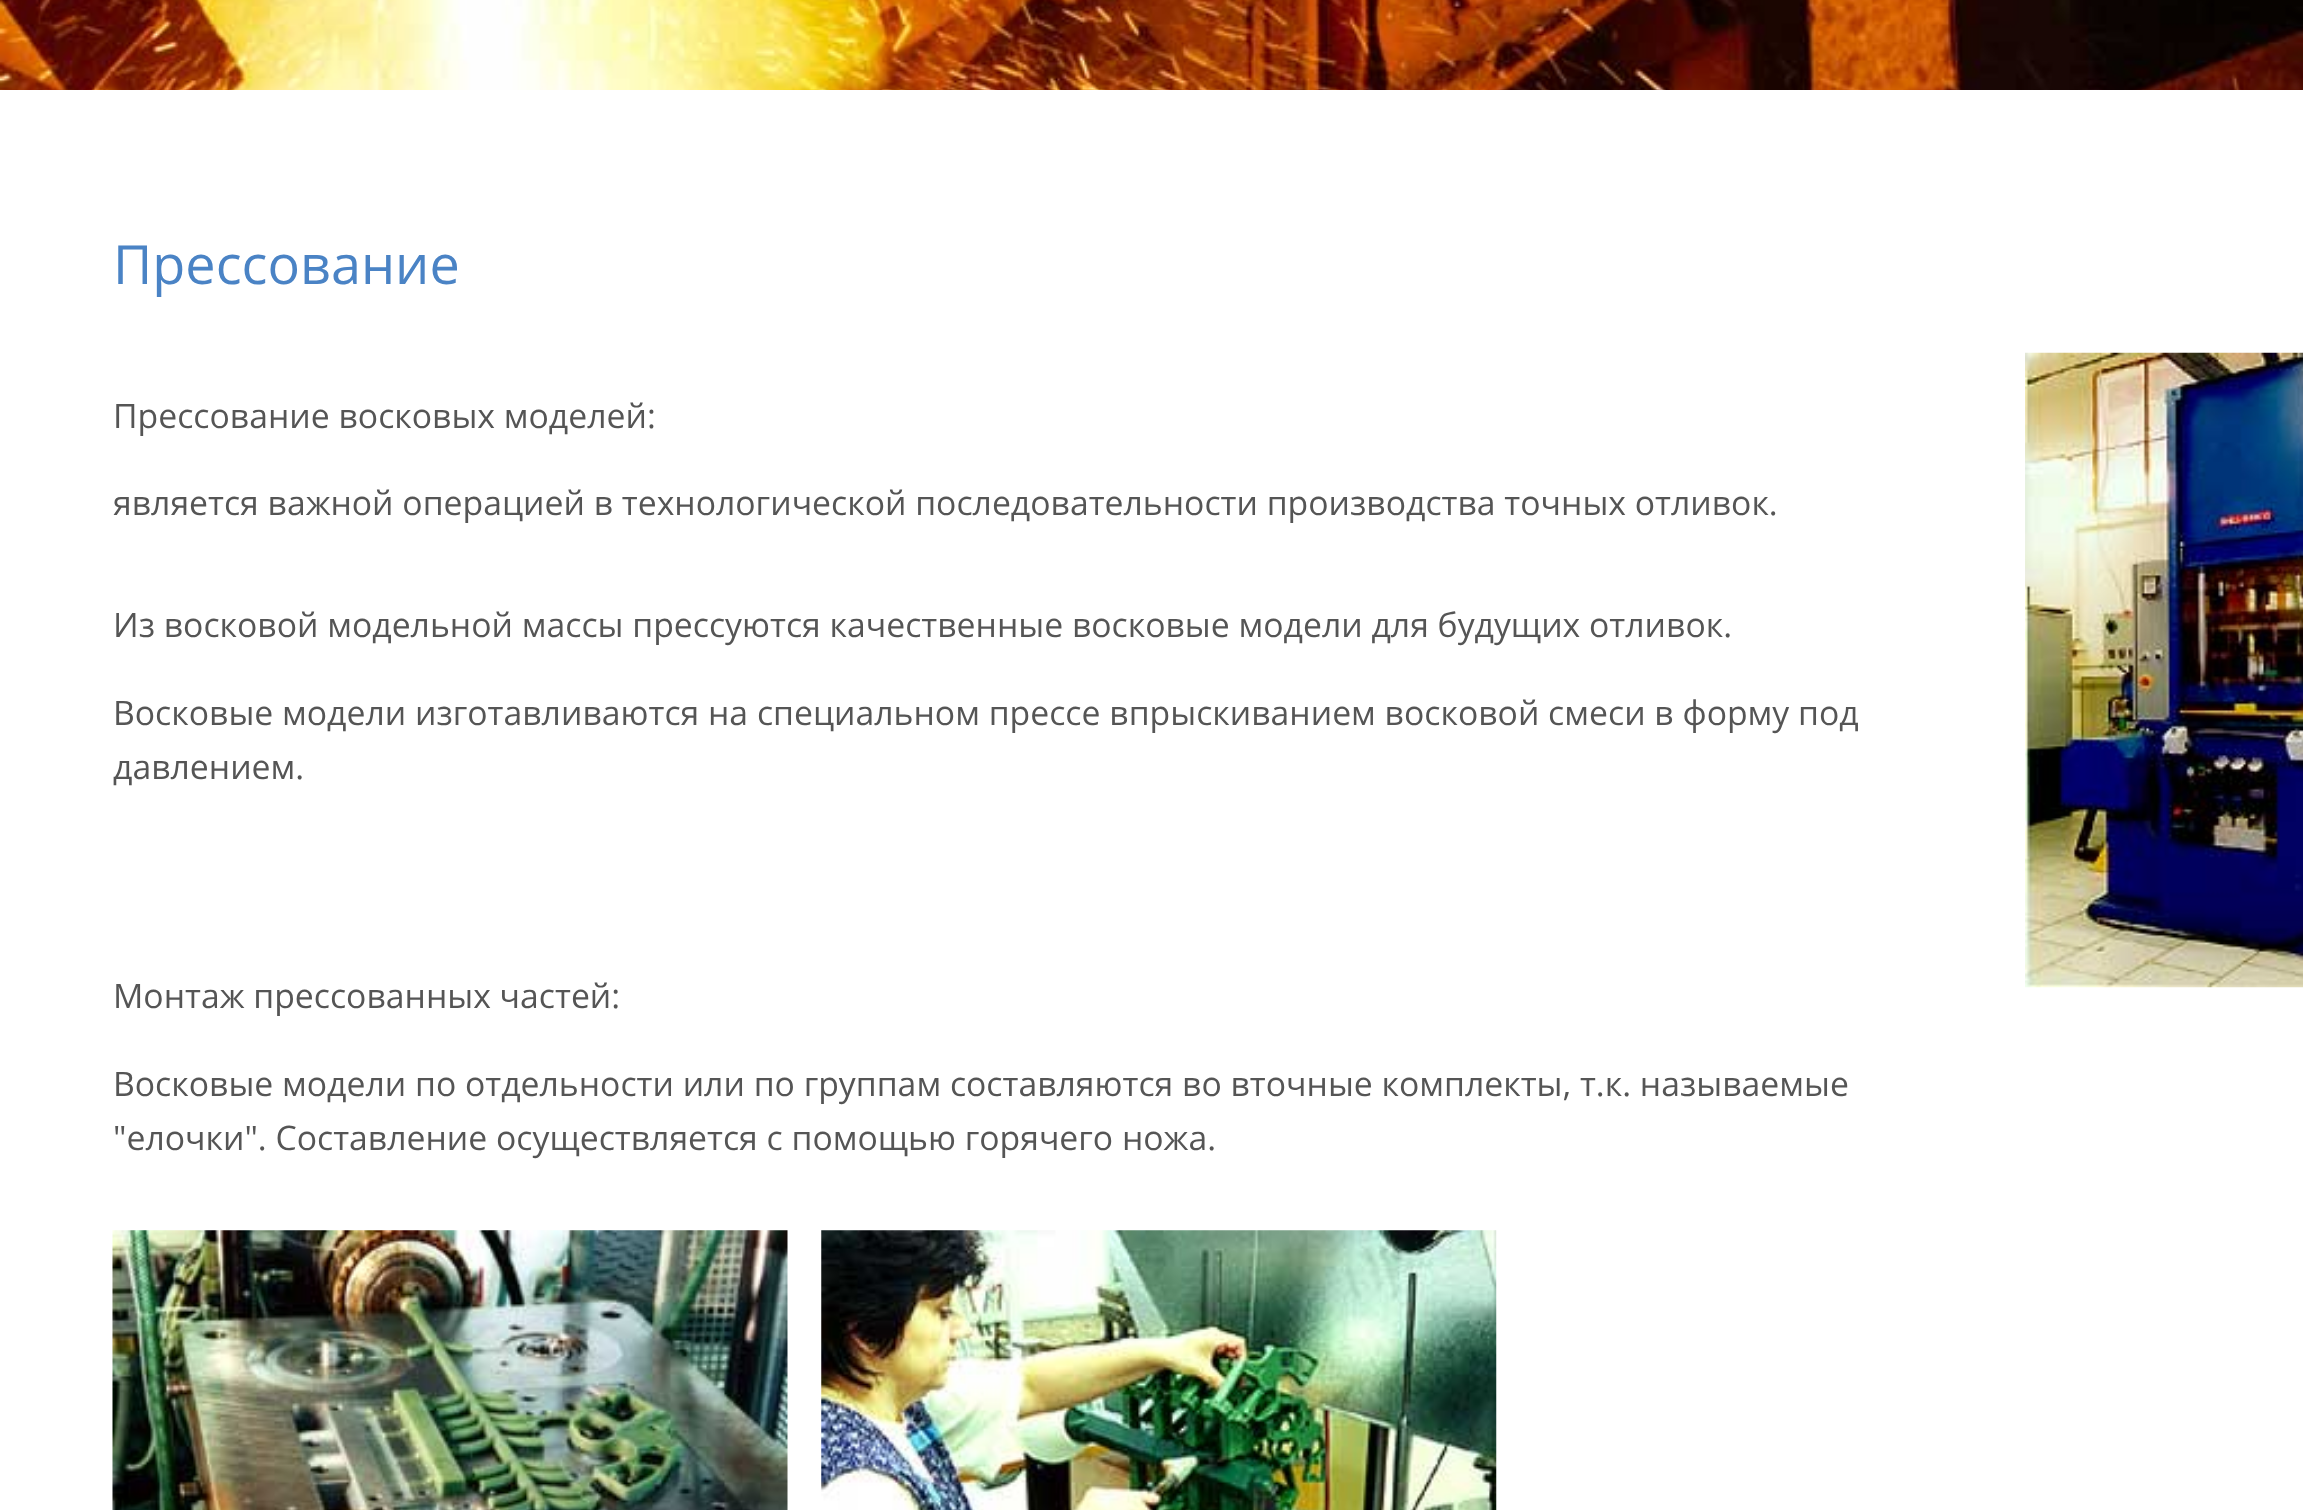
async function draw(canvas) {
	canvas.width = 2303;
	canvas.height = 1510;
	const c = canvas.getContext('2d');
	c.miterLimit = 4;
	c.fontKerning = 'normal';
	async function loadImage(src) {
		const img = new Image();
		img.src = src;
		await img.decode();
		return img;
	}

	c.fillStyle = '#fff';
	c.fillRect(0, 0, 2303, 1510);
	c.drawImage(await loadImage('img1.png'), 0, 0, 2303, 90);
	c.font = '54px Open Sans';
	c.fillStyle = '#4a83c5';
	c.fillText('Прессование', 113, 284);
	c.font = '33.75px Open Sans';
	c.fillStyle = '#555';
	c.fillText('Прессование восковых моделей:', 113, 428);
	c.drawImage(await loadImage('img2.png'), 2025, 352, 278, 636);
	for (const [text, x, y] of [
		['является важной операцией в технологической последовательности производства точных отливок.', 113, 515],
		['Из восковой модельной массы прессуются качественные восковые модели для будущих отливок.', 113, 637],
		['Восковые модели изготавливаются на специальном прессе впрыскиванием восковой смеси в форму под', 113, 725],
		['давлением.', 113, 779],
		['Монтаж прессованных частей:', 113, 1008],
		['Восковые модели по отдельности или по группам составляются во вточные комплекты, т.к. называемые', 113, 1096],
		['"елочки". Составление осуществляется с помощью горячего ножа.', 113, 1150],
	]) {
		c.fillText(text, x, y);
	}
	c.drawImage(await loadImage('img3.png'), 112, 1230, 676, 280);
	c.drawImage(await loadImage('img4.png'), 821, 1230, 676, 280);
}

draw(document.querySelector('canvas'));
